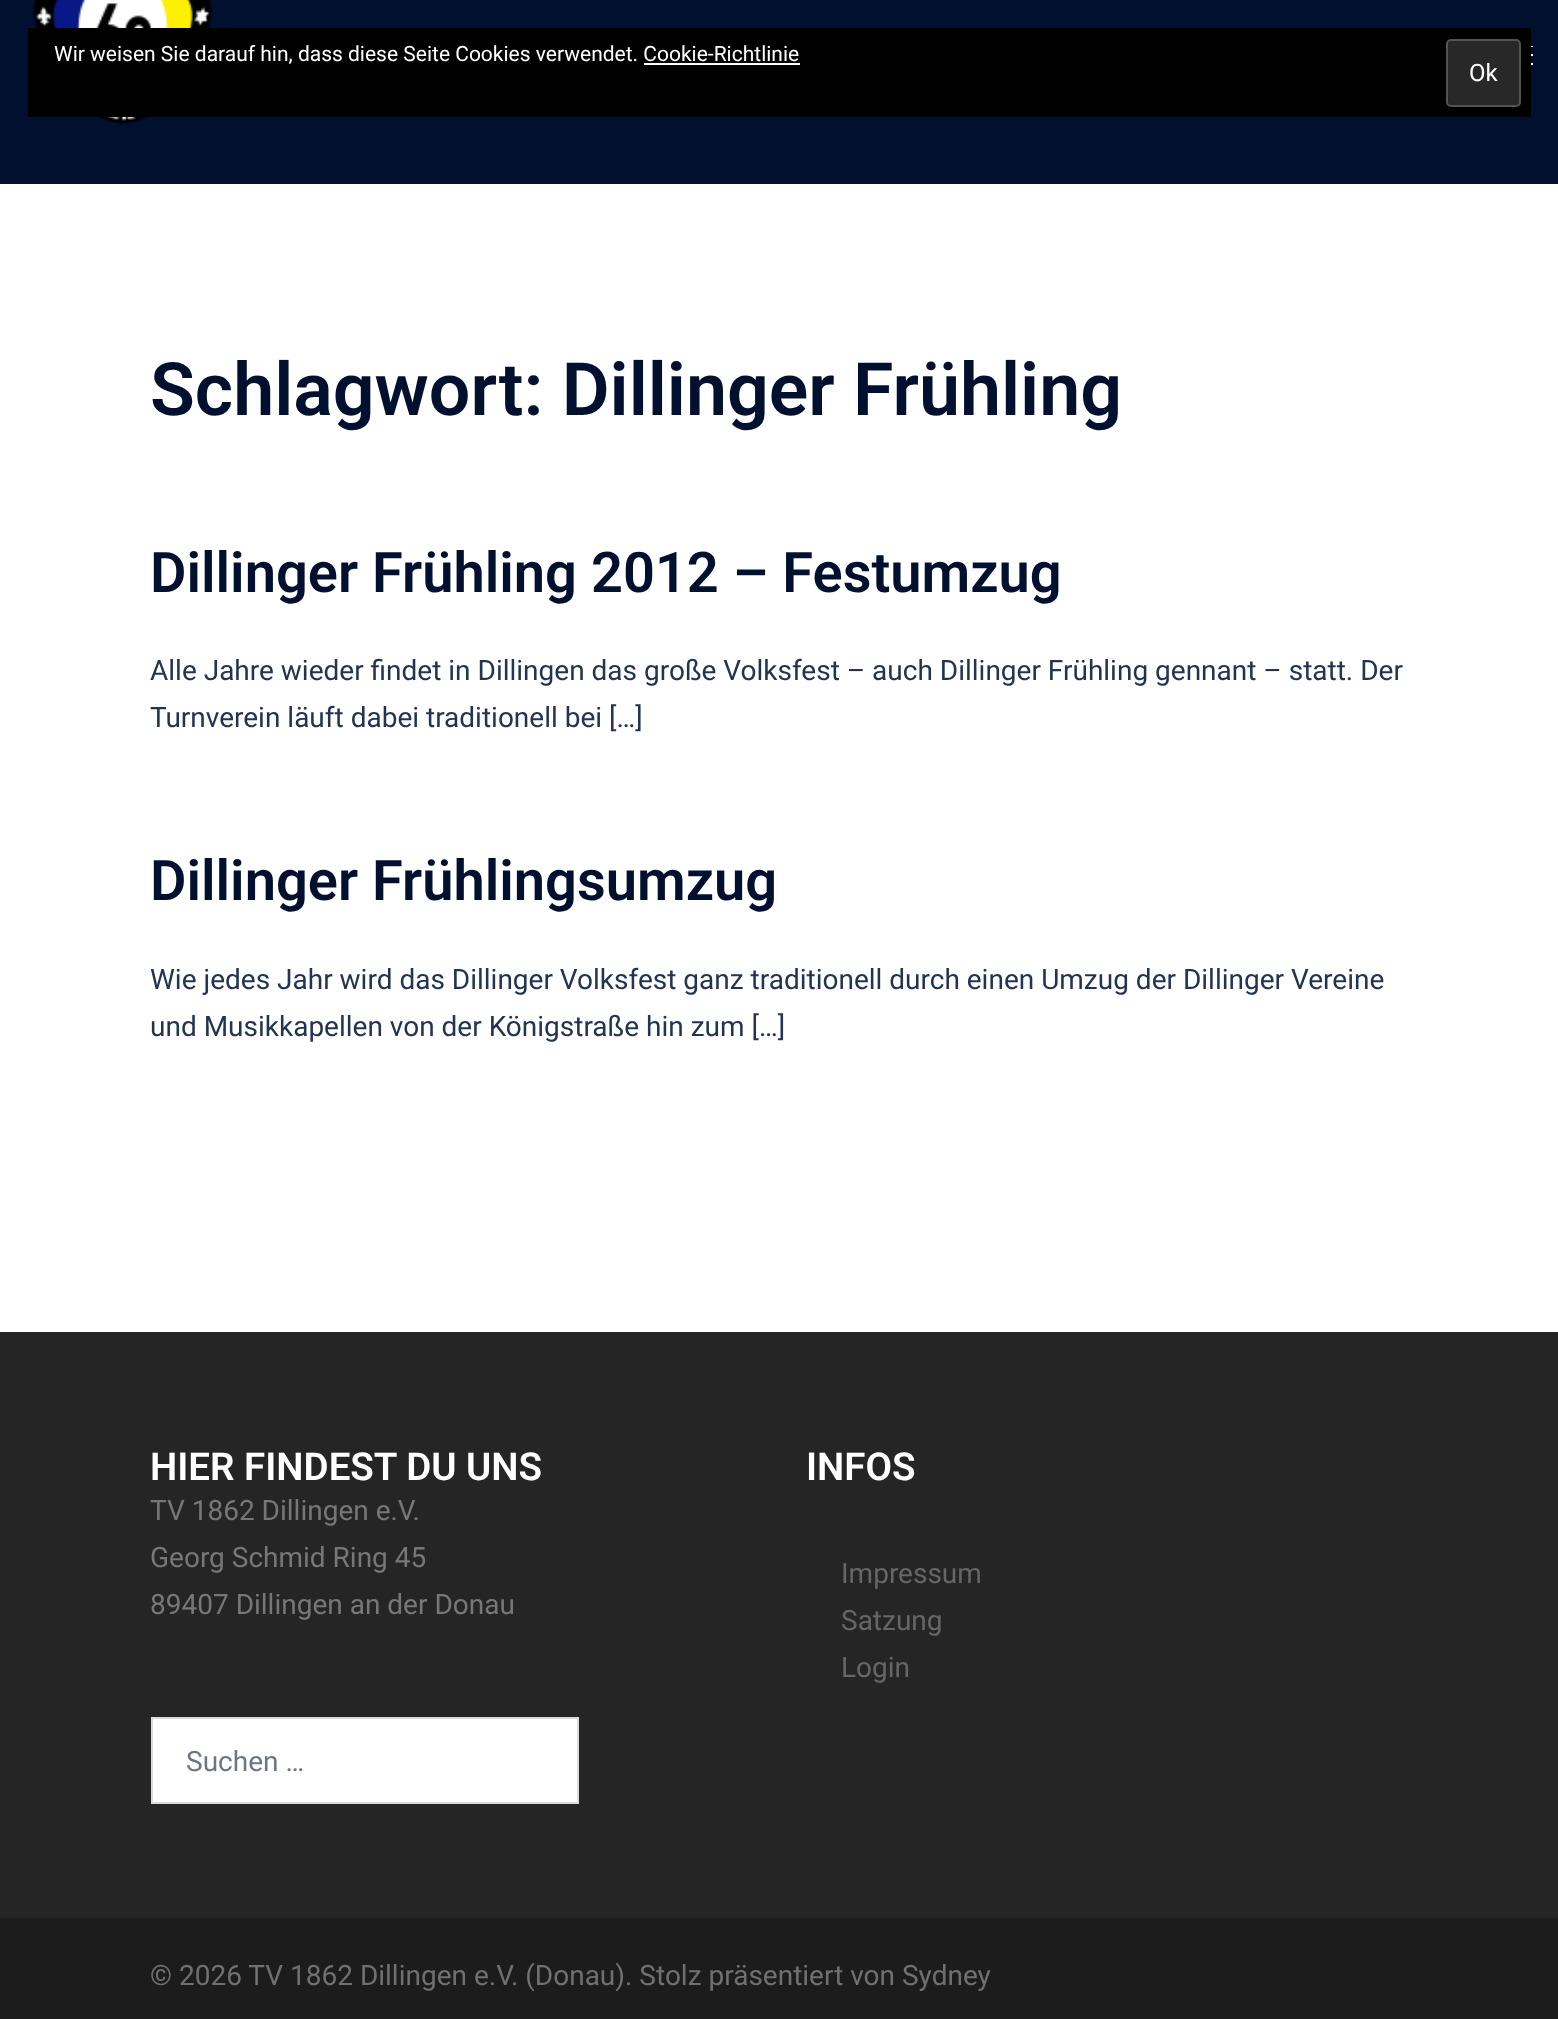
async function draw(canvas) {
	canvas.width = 1558;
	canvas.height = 2019;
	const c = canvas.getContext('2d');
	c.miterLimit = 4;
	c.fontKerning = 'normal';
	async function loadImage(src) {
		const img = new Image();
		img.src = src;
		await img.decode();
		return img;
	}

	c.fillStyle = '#fff';
	c.fillRect(0, 0, 1558, 2019);
	c.fillStyle = '#00102e';
	c.fillRect(0, 0, 1558, 184);
	c.drawImage(await loadImage('img1.png'), 33, 0, 179, 125);
	c.fillStyle = '#000';
	c.fillRect(28, 28, 1503, 89);
	c.font = '21px Roboto';
	c.fillStyle = '#fff';
	c.fillText('Wir weisen Sie darauf hin, dass diese Seite Cookies verwendet. Cookie-Richtlinie', 54, 61);
	c.fillRect(644, 63, 156, 2);
	c.fillStyle = '#282828';
	c.beginPath();
	c.roundRect(1447, 40, 73, 66, 4);
	c.fill();
	c.strokeStyle = '#535353';
	c.lineWidth = 2;
	c.stroke();
	c.font = '24px Roboto';
	c.fillStyle = '#fff';
	c.fillText('Ok', 1469, 81);
	for (const [x, y, w, h, color] of [
		[1531, 46, 2, 1, '#fff'],
		[1531, 54, 2, 2, '#fff'],
		[1531, 63, 2, 2, '#fff'],
	]) {
		c.fillStyle = color;
		c.fillRect(x, y, w, h);
	}
	c.font = '600 73.5px Roboto';
	c.fillStyle = '#00102e';
	c.fillText('Schlagwort: Dillinger Frühling', 150, 415);
	c.font = '600 56px Roboto';
	c.fillText('Dillinger Frühling 2012 – Festumzug', 150, 592);
	c.font = '28px Roboto';
	c.fillStyle = '#233452';
	c.fillText('Alle Jahre wieder findet in Dillingen das große Volksfest – auch Dillinger Frühling gennant – statt. Der', 150, 680);
	c.fillText('Turnverein läuft dabei traditionell bei […]', 150, 727);
	c.font = '600 56px Roboto';
	c.fillStyle = '#00102e';
	c.fillText('Dillinger Frühlingsumzug', 150, 900);
	c.font = '28px Roboto';
	c.fillStyle = '#233452';
	c.fillText('Wie jedes Jahr wird das Dillinger Volksfest ganz traditionell durch einen Umzug der Dillinger Vereine', 150, 989);
	c.fillText('und Musikkapellen von der Königstraße hin zum […]', 150, 1036);
	c.fillStyle = '#252525';
	c.fillRect(0, 1332, 1558, 586);
	c.font = '600 38.5px Roboto';
	c.fillStyle = '#fff';
	c.fillText('HIER FINDEST DU UNS', 150, 1480);
	c.font = '28px Roboto';
	c.fillStyle = '#777';
	for (const [text, x, y] of [
		['TV 1862 Dillingen e.V.', 150, 1520],
		['Georg Schmid Ring 45', 150, 1567],
		['89407 Dillingen an der Donau', 150, 1614],
	]) {
		c.fillText(text, x, y);
	}
	c.fillStyle = '#fff';
	c.beginPath();
	c.rect(152, 1718, 426, 85);
	c.fill();
	c.strokeStyle = '#dbdbdb';
	c.stroke();
	c.fillStyle = '#6d7685';
	c.fillText('Suchen …', 186, 1771);
	c.font = '600 38.5px Roboto';
	c.fillStyle = '#fff';
	c.fillText('INFOS', 806, 1480);
	c.font = '28px Roboto';
	c.fillStyle = '#666';
	for (const [text, x, y] of [
		['Impressum', 841, 1583],
		['Satzung', 841, 1630],
		['Login', 841, 1677],
	]) {
		c.fillText(text, x, y);
	}
	c.fillStyle = '#1c1c1c';
	c.fillRect(0, 1918, 1558, 101);
	c.fillStyle = '#707070';
	c.fillText('© 2026 TV 1862 Dillingen e.V. (Donau). Stolz präsentiert von Sydney', 150, 1985);
}

draw(document.querySelector('canvas'));
